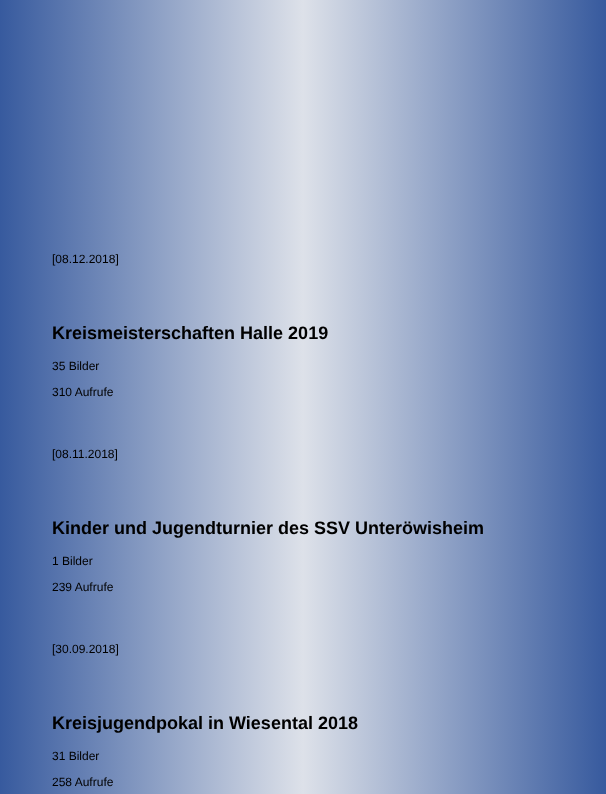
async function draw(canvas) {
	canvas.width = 606;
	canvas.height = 794;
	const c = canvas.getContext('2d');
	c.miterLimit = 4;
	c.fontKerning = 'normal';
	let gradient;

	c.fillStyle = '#fff';
	c.fillRect(0, 0, 606, 794);
	gradient = c.createLinearGradient(0, 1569, 606, 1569);
	gradient.addColorStop(0, '#375a9e');
	gradient.addColorStop(0.5, '#dde1e9');
	gradient.addColorStop(1, '#375a9e');
	c.fillStyle = gradient;
	c.fillRect(0, 0, 606, 794);
	c.font = '12px Liberation Sans';
	c.fillStyle = '#000';
	c.fillText('[08.12.2018]', 52, 263);
	c.font = 'bold 18px Liberation Sans';
	c.fillText('Kreismeisterschaften Halle 2019', 52, 339);
	c.font = '12px Liberation Sans';
	for (const [text, x, y] of [
		['35 Bilder', 52, 370],
		['310 Aufrufe', 52, 396],
		['[08.11.2018]', 52, 458],
	]) {
		c.fillText(text, x, y);
	}
	c.font = 'bold 18px Liberation Sans';
	c.fillText('Kinder und Jugendturnier des SSV Unteröwisheim', 52, 534);
	c.font = '12px Liberation Sans';
	for (const [text, x, y] of [
		['1 Bilder', 52, 565],
		['239 Aufrufe', 52, 591],
		['[30.09.2018]', 52, 653],
	]) {
		c.fillText(text, x, y);
	}
	c.font = 'bold 18px Liberation Sans';
	c.fillText('Kreisjugendpokal in Wiesental 2018', 52, 729);
	c.font = '12px Liberation Sans';
	c.fillText('31 Bilder', 52, 760);
	c.fillText('258 Aufrufe', 52, 786);
}

draw(document.querySelector('canvas'));
